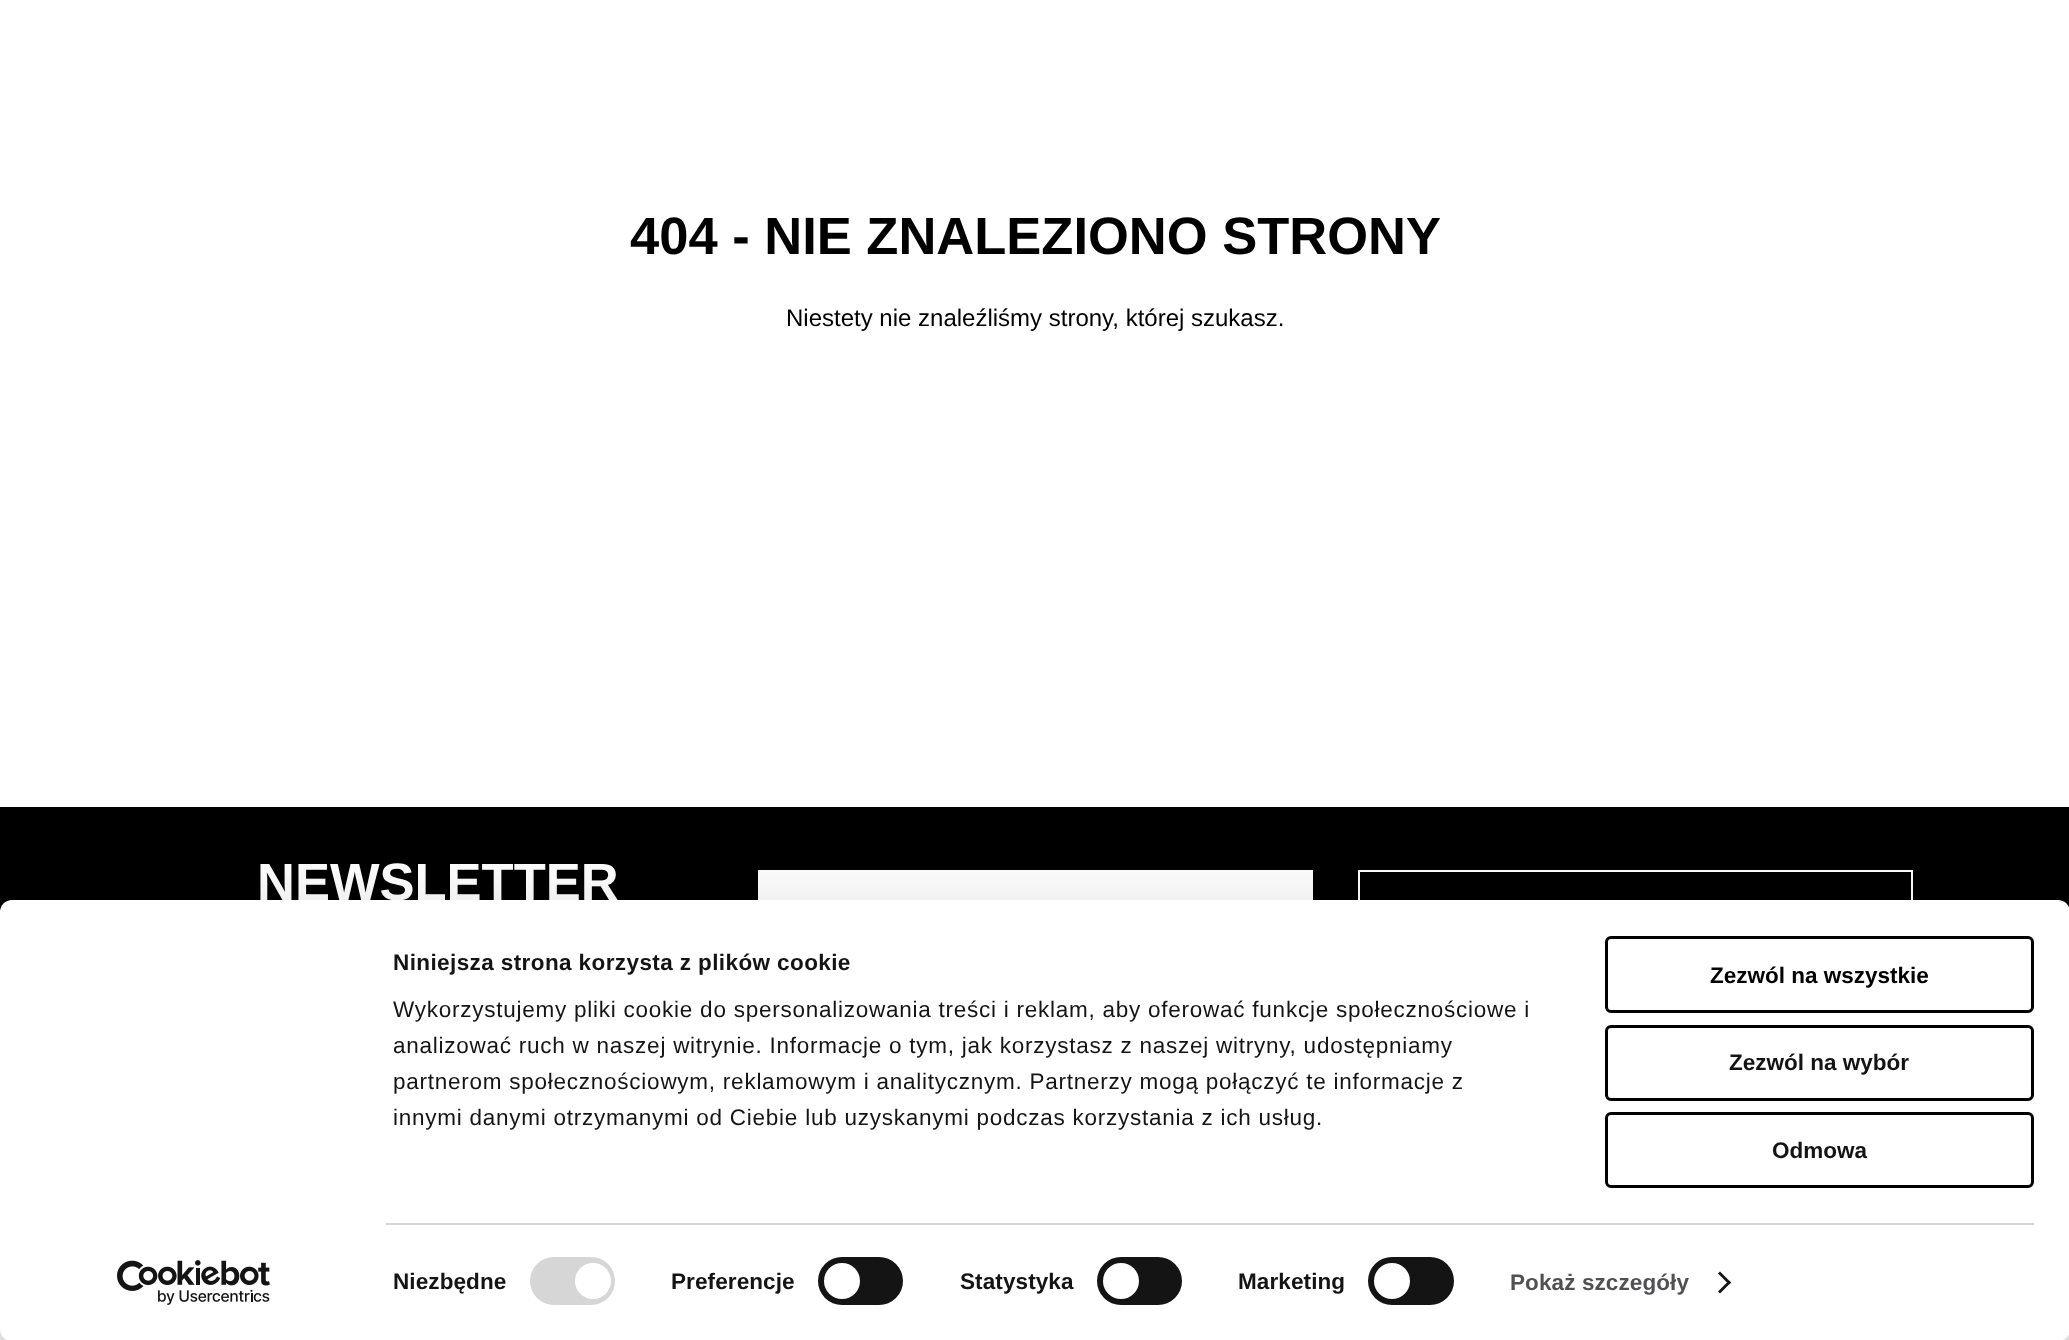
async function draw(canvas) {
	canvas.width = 2069;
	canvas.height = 1340;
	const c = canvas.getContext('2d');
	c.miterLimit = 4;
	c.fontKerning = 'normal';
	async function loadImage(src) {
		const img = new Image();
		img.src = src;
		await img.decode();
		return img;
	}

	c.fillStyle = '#fff';
	c.fillRect(0, 0, 2069, 1340);
	c.font = 'bold 52.5px Liberation Sans';
	c.fillStyle = '#000';
	c.fillText('404 - NIE ZNALEZIONO STRONY', 630, 254);
	c.font = '24px Liberation Sans';
	c.fillText('Niestety nie znaleźliśmy strony, której szukasz.', 786, 326);
	c.fillRect(0, 807, 2069, 105);
	c.font = 'bold 52.5px Liberation Sans';
	c.fillStyle = '#fff';
	c.fillText('NEWSLETTER', 257, 900);
	c.fillRect(758, 870, 555, 30);
	c.strokeStyle = '#fff';
	c.lineWidth = 2;
	c.strokeRect(1359, 871, 553, 67);
	c.fillStyle = '#0000004d';
	c.filter = 'blur(52.5px)';
	c.beginPath();
	c.roundRect(0, 945, 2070, 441, 12);
	c.fill();
	c.filter = 'none';
	c.fillStyle = '#fff';
	c.beginPath();
	c.roundRect(0, 900, 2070, 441, 12);
	c.fill();
	c.letterSpacing = '0.4px';
	c.font = 'bold 22.5px Liberation Sans';
	c.fillStyle = '#141414';
	c.fillText('Niniejsza strona korzysta z plików cookie', 393, 970);
	c.letterSpacing = '0.75px';
	c.font = '22.5px Liberation Sans';
	for (const [text, x, y] of [
		['Wykorzystujemy pliki cookie do spersonalizowania treści i reklam, aby oferować funkcje społecznościowe i', 393, 1017],
		['analizować ruch w naszej witrynie. Informacje o tym, jak korzystasz z naszej witryny, udostępniamy', 393, 1053],
		['partnerom społecznościowym, reklamowym i analitycznym. Partnerzy mogą połączyć te informacje z', 393, 1089],
		['innymi danymi otrzymanymi od Ciebie lub uzyskanymi podczas korzystania z ich usług.', 393, 1125],
	]) {
		c.fillText(text, x, y);
	}
	c.fillStyle = '#d6d6d6';
	c.fillRect(386, 1223, 1648, 2);
	c.letterSpacing = '0.1px';
	c.font = 'bold 22.5px Liberation Sans';
	c.fillStyle = '#141414';
	c.fillText('Niezbędne', 393, 1289);
	c.fillStyle = '#d6d6d6';
	c.beginPath();
	c.roundRect(530, 1257, 85, 48, 24);
	c.fill();
	c.fillStyle = '#fff';
	c.beginPath();
	c.arc(593, 1281, 18, 0, 2 * Math.PI);
	c.fill();
	c.fillStyle = '#141414';
	c.fillText('Preferencje', 671, 1289);
	c.beginPath();
	c.roundRect(818, 1257, 85, 48, 24);
	c.fill();
	c.fillStyle = '#fff';
	c.beginPath();
	c.arc(842, 1281, 18, 0, 2 * Math.PI);
	c.fill();
	c.fillStyle = '#141414';
	c.fillText('Statystyka', 960, 1289);
	c.beginPath();
	c.roundRect(1097, 1257, 85, 48, 24);
	c.fill();
	c.fillStyle = '#fff';
	c.beginPath();
	c.arc(1121, 1281, 18, 0, 2 * Math.PI);
	c.fill();
	c.fillStyle = '#141414';
	c.fillText('Marketing', 1238, 1289);
	c.beginPath();
	c.roundRect(1368, 1257, 86, 48, 24);
	c.fill();
	c.fillStyle = '#fff';
	c.beginPath();
	c.arc(1392, 1281, 18, 0, 2 * Math.PI);
	c.fill();
	c.fillStyle = '#515154';
	c.fillText('Pokaż szczegóły', 1510, 1290);
	c.fillStyle = '#141414';
	c.beginPath();
	c.moveTo(1720, 1271.5);
	c.lineTo(1731, 1282.5);
	c.lineTo(1729, 1284.5);
	c.lineTo(1718, 1273.5);
	c.closePath();
	c.fill();
	c.beginPath();
	c.moveTo(1729, 1280.5);
	c.lineTo(1731, 1282.5);
	c.lineTo(1720, 1293.5);
	c.lineTo(1718, 1291.5);
	c.closePath();
	c.fill();
	c.beginPath();
	c.roundRect(1606.5, 937.5, 426, 74, 4.5);
	c.strokeStyle = '#000';
	c.lineWidth = 3;
	c.stroke();
	c.letterSpacing = '0px';
	c.fillStyle = '#000';
	c.fillText('Zezwól na wszystkie', 1710, 983);
	c.beginPath();
	c.roundRect(1606.5, 1026.5, 426, 73, 4.5);
	c.stroke();
	c.fillStyle = '#141414';
	c.fillText('Zezwól na wybór', 1729, 1070);
	c.beginPath();
	c.roundRect(1606.5, 1113.5, 426, 73, 4.5);
	c.stroke();
	c.fillText('Odmowa', 1772, 1158);
	c.drawImage(await loadImage('img1.png'), 117, 1260, 153, 45);
}

draw(document.querySelector('canvas'));
